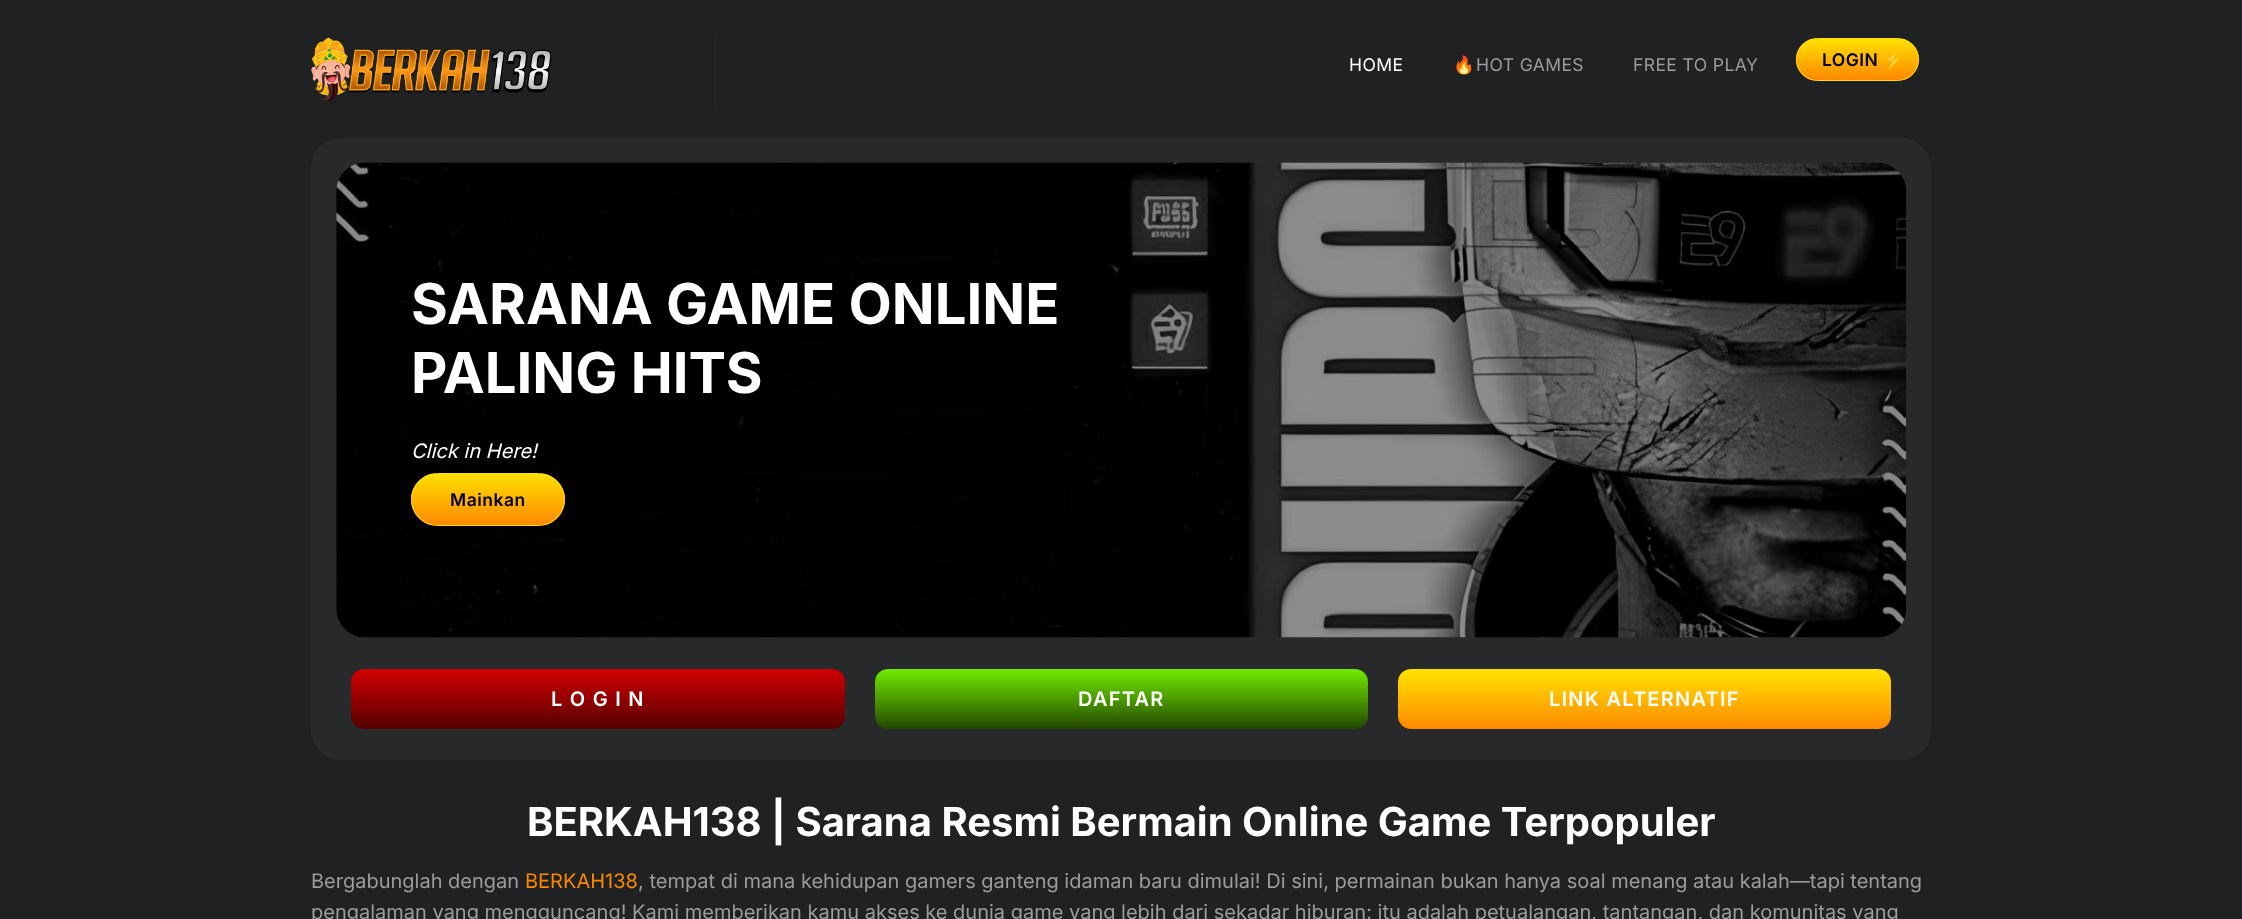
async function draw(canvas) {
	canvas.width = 2242;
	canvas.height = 919;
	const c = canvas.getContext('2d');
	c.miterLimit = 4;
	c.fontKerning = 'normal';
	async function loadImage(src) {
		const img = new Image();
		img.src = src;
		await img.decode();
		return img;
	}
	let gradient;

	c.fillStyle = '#1f2122';
	c.fillRect(0, 0, 2242, 919);
	c.fillStyle = '#27292a';
	c.fillRect(715, 38, 1, 68);
	c.drawImage(await loadImage('img1.png'), 311, 37, 240, 64);
	c.letterSpacing = '0.4px';
	c.font = '17.5px Inter';
	c.fillStyle = '#fff';
	c.fillText('HOME', 1349, 71);
	c.font = '17.5px Noto Color Emoji';
	c.fillStyle = '#9c9c9c';
	c.fillText('🔥', 1453, 71);
	c.font = '17.5px Inter';
	c.fillText('HOT GAMES', 1476, 71);
	c.fillText('FREE TO PLAY', 1633, 71);
	c.save();
	c.beginPath();
	c.roundRect(1796, 38, 123, 43, 21.5);
	c.clip();
	gradient = c.createLinearGradient(1858, 80, 1858, 39);
	gradient.addColorStop(0, '#f80');
	gradient.addColorStop(1, '#ffe000');
	c.fillStyle = gradient;
	c.fillRect(1796, 39, 123, 41);
	c.restore();
	c.beginPath();
	c.roundRect(1796.5, 38.5, 122, 42, 21);
	c.strokeStyle = '#ffe000';
	c.stroke();
	c.font = '600 17.5px Inter';
	c.fillStyle = '#000';
	c.fillText('LOGIN', 1822, 66);
	c.font = 'bold 17.5px Noto Color Emoji';
	c.fillText('⚡', 1883, 66);
	c.fillStyle = '#27292a';
	c.beginPath();
	c.roundRect(311, 138, 1620, 622, 29);
	c.fill();
	c.drawImage(await loadImage('img2.png'), 336, 162, 1571, 476);
	c.letterSpacing = '0px';
	c.font = 'bold 56.25px Inter';
	c.fillStyle = '#fff';
	c.fillText('SARANA GAME ONLINE', 411, 324);
	c.fillText('PALING HITS', 411, 393);
	c.font = 'italic 20px Inter';
	c.fillText('Click in Here!', 411, 458);
	c.save();
	c.beginPath();
	c.roundRect(411, 473, 154, 53, 26.5);
	c.clip();
	gradient = c.createLinearGradient(488, 525, 488, 474);
	gradient.addColorStop(0, '#f80');
	gradient.addColorStop(1, '#ffe000');
	c.fillStyle = gradient;
	c.fillRect(411, 474, 154, 51);
	c.restore();
	c.beginPath();
	c.roundRect(411.5, 473.5, 153, 52, 26);
	c.stroke();
	c.letterSpacing = '0.5px';
	c.font = '600 17.5px Inter';
	c.fillStyle = '#000';
	c.fillText('Mainkan', 450, 506);
	gradient = c.createLinearGradient(598, 669, 598, 729);
	gradient.addColorStop(0.05, '#cb0000');
	gradient.addColorStop(1, '#500');
	c.fillStyle = gradient;
	c.beginPath();
	c.roundRect(351, 669, 494, 60, 13);
	c.fill();
	c.letterSpacing = '1.25px';
	c.font = '600 20px Inter';
	c.fillStyle = '#fff';
	c.fillText('L O G I N', 551, 706);
	gradient = c.createLinearGradient(1121, 669, 1121, 729);
	gradient.addColorStop(0.05, '#6ee400');
	gradient.addColorStop(1, '#234700');
	c.fillStyle = gradient;
	c.beginPath();
	c.roundRect(875, 669, 493, 60, 13);
	c.fill();
	c.fillStyle = '#fff';
	c.fillText('DAFTAR', 1078, 706);
	gradient = c.createLinearGradient(1644, 669, 1644, 729);
	gradient.addColorStop(0.05, '#ffe000');
	gradient.addColorStop(1, '#f80');
	c.fillStyle = gradient;
	c.beginPath();
	c.roundRect(1398, 669, 493, 60, 13);
	c.fill();
	c.fillStyle = '#fff';
	c.fillText('LINK ALTERNATIF', 1549, 706);
	c.letterSpacing = '0px';
	c.font = 'bold 40px Inter';
	c.fillText('BERKAH138 | Sarana Resmi Bermain Online Game Terpopuler', 527, 836);
	c.font = '20px Inter';
	c.fillStyle = '#9c9c9c';
	c.fillText('Bergabunglah dengan', 311, 888);
	c.fillStyle = '#f80';
	c.fillText('BERKAH138', 525, 888);
	c.fillStyle = '#9c9c9c';
	c.fillText(', tempat di mana kehidupan gamers ganteng idaman baru dimulai! Di sini, permainan bukan hanya soal menang atau kalah—tapi tentang', 638, 888);
	c.fillText('pengalaman yang mengguncang! Kami memberikan kamu akses ke dunia game yang lebih dari sekadar hiburan: itu adalah petualangan, tantangan, dan komunitas yang', 311, 919);
}

draw(document.querySelector('canvas'));
